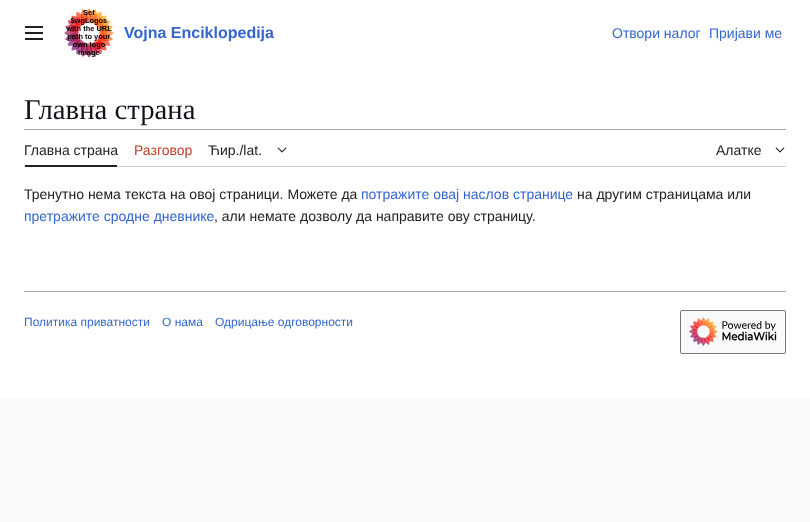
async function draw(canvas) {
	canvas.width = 810;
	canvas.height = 522;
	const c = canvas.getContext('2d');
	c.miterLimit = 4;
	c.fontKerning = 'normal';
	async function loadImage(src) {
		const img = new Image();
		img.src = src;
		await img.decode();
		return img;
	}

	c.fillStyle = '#f8f9fa';
	c.fillRect(0, 0, 810, 522);
	c.fillStyle = '#fff';
	c.fillRect(0, 0, 810, 398);
	c.drawImage(await loadImage('img1.png'), 25, 26, 18, 14);
	c.drawImage(await loadImage('img2.png'), 64, 8, 50, 50);
	c.font = 'bold 16px Liberation Sans';
	c.fillStyle = '#36c';
	c.fillText('Vojna Enciklopedija', 124, 38);
	c.font = '14px Liberation Sans';
	c.fillText('Отвори налог', 612, 38);
	c.fillText('Пријави ме', 709, 38);
	c.font = '28.75px Liberation Serif';
	c.fillStyle = '#101418';
	c.fillText('Главна страна', 24, 119);
	for (const [x, y, w, h, color] of [
		[24, 129, 762, 1, '#a2a9b1'],
		[24, 166, 762, 1, '#c8ccd1'],
		[25, 165, 92, 2, '#202122'],
	]) {
		c.fillStyle = color;
		c.fillRect(x, y, w, h);
	}
	c.font = '14px Liberation Sans';
	c.fillText('Главна страна', 24, 155);
	c.fillStyle = '#bf3c2c';
	c.fillText('Разговор', 134, 155);
	c.fillStyle = '#202122';
	c.fillText('Ћир./lat.', 208, 155);
	c.drawImage(await loadImage('img3.png'), 277, 147, 10, 6);
	c.fillText('Алатке', 716, 155);
	c.drawImage(await loadImage('img3.png'), 775, 147, 10, 6);
	c.fillText('Тренутно нема текста на овој страници. Можете да', 24, 199);
	c.fillStyle = '#36c';
	c.fillText('потражите овај наслов странице', 361, 199);
	c.fillStyle = '#202122';
	c.fillText('на другим страницама или', 577, 199);
	c.fillStyle = '#36c';
	c.fillText('претражите сродне дневнике', 24, 221);
	c.fillStyle = '#202122';
	c.fillText(', али немате дозволу да направите ову страницу.', 214, 221);
	c.fillStyle = '#a2a9b1';
	c.fillRect(24, 291, 762, 1);
	c.font = '12px Liberation Sans';
	c.fillStyle = '#36c';
	for (const [text, x, y] of [
		['Политика приватности', 24, 326],
		['О нама', 162, 326],
		['Одрицање одговорности', 215, 326],
	]) {
		c.fillText(text, x, y);
	}
	c.fillStyle = '#f8f9fa';
	c.beginPath();
	c.roundRect(680.5, 310.5, 105, 43, 1.5);
	c.fill();
	c.strokeStyle = '#72777d';
	c.stroke();
	c.drawImage(await loadImage('img4.png'), 689, 317, 88, 29);
}

draw(document.querySelector('canvas'));
